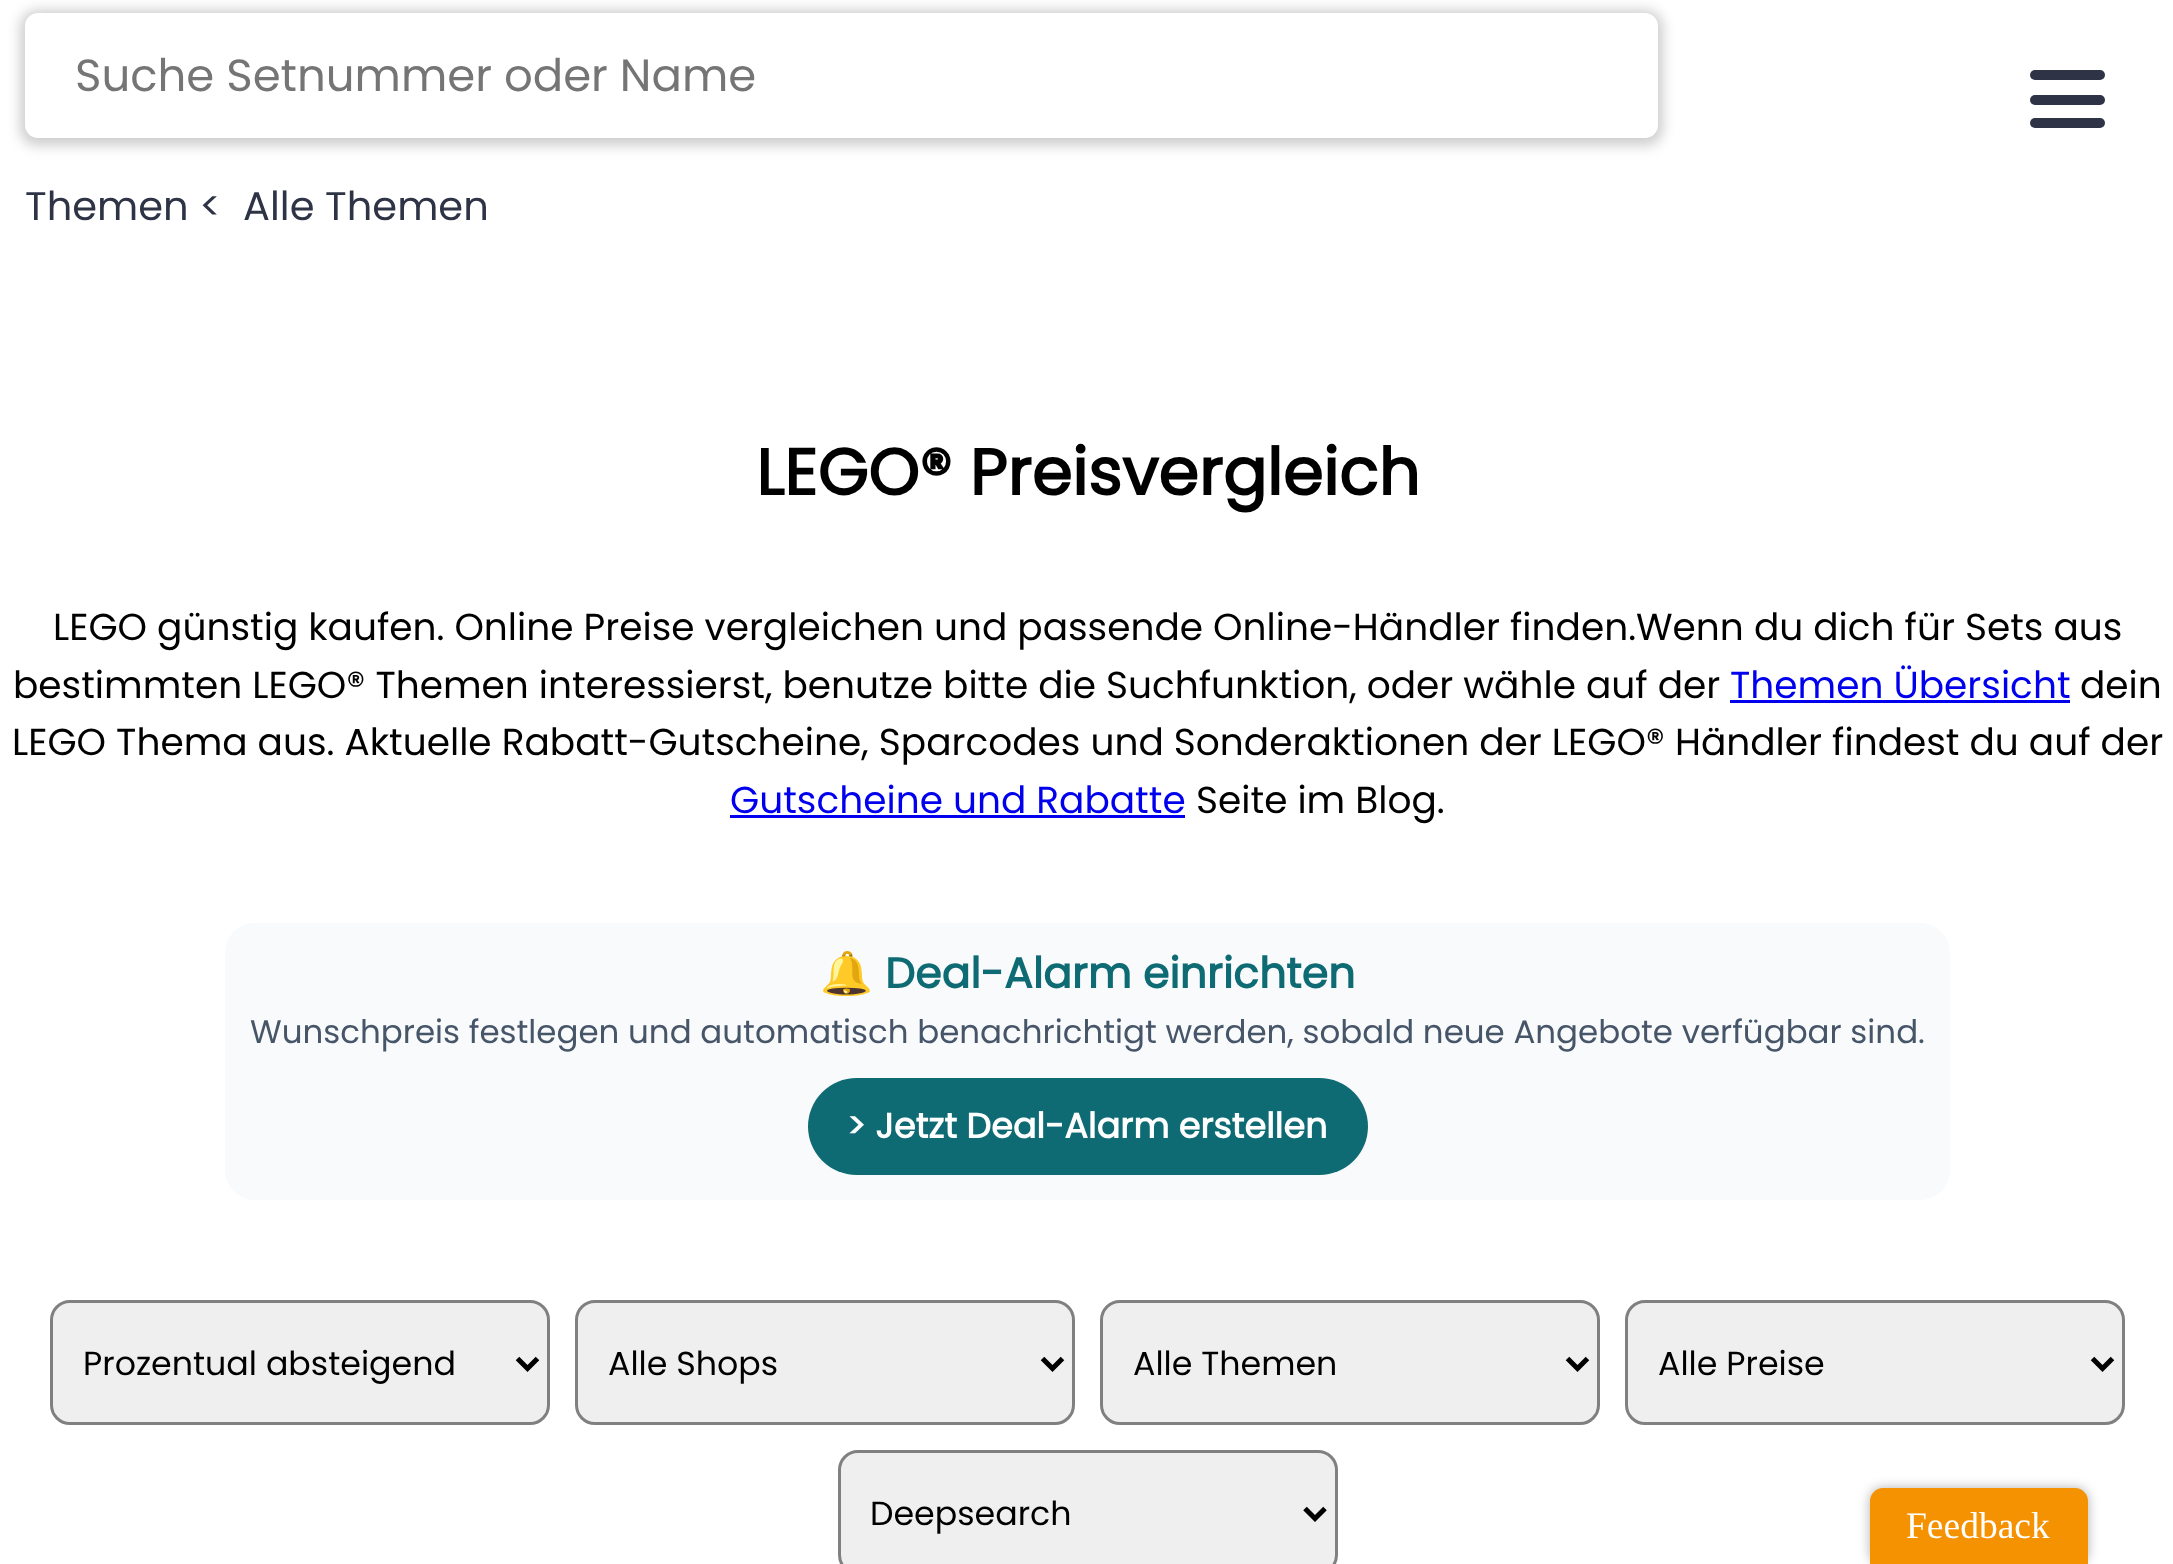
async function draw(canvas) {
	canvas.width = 2173;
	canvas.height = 1564;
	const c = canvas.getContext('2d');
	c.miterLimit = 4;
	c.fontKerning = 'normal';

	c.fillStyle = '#fff';
	c.fillRect(0, 0, 2173, 1564);
	c.fillStyle = '#0000001f';
	c.filter = 'blur(6px)';
	c.beginPath();
	c.roundRect(18, 8, 1647, 140, 20);
	c.fill();
	c.filter = 'none';
	c.fillStyle = '#0000001a';
	c.filter = 'blur(6px)';
	c.beginPath();
	c.roundRect(25, 15, 1633, 125, 13);
	c.fill();
	c.filter = 'none';
	c.fillStyle = '#fff';
	c.beginPath();
	c.roundRect(25, 13, 1633, 125, 13);
	c.fill();
	c.font = '45px Poppins';
	c.fillStyle = '#757575';
	c.fillText('Suche Setnummer oder Name', 75, 91);
	c.fillStyle = '#2e3446';
	c.beginPath();
	c.roundRect(2030, 70, 75, 10, 5);
	c.fill();
	c.beginPath();
	c.roundRect(2030, 95, 75, 10, 5);
	c.fill();
	c.beginPath();
	c.roundRect(2030, 118, 75, 10, 5);
	c.fill();
	c.font = '40px Poppins';
	c.fillText('Themen <', 25, 220);
	c.fillText('Alle Themen', 243, 220);
	c.font = 'bold 65px Poppins';
	c.fillStyle = '#000';
	c.fillText('LEGO® Preisvergleich', 756, 495);
	c.font = '37.5px Poppins';
	c.fillText('LEGO günstig kaufen. Online Preise vergleichen und passende Online-Händler finden.Wenn du dich für Sets aus', 53, 640);
	c.fillText('bestimmten LEGO® Themen interessierst, benutze bitte die Suchfunktion, oder wähle auf der', 13, 698);
	c.fillStyle = '#00e';
	c.fillText('Themen Übersicht', 1730, 698);
	c.fillRect(1730, 700, 340, 3);
	c.fillStyle = '#000';
	c.fillText('dein', 2080, 698);
	c.fillText('LEGO Thema aus. Aktuelle Rabatt-Gutscheine, Sparcodes und Sonderaktionen der LEGO® Händler findest du auf der', 12, 755);
	c.fillStyle = '#00e';
	c.fillText('Gutscheine und Rabatte', 730, 813);
	c.fillRect(730, 815, 455, 3);
	c.fillStyle = '#000';
	c.fillText('Seite im Blog.', 1196, 813);
	c.fillStyle = '#f8fafc';
	c.beginPath();
	c.roundRect(225, 923, 1725, 277, 30);
	c.fill();
	c.font = 'bold 42.5px Noto Color Emoji';
	c.fillStyle = '#0e6b74';
	c.fillText('🔔', 820, 988);
	c.font = 'bold 42.5px Poppins';
	c.fillText('Deal-Alarm einrichten', 885, 988);
	c.font = '32.5px Poppins';
	c.fillStyle = '#475569';
	c.fillText('Wunschpreis festlegen und automatisch benachrichtigt werden, sobald neue Angebote verfügbar sind.', 250, 1043);
	c.fillStyle = '#0e6b74';
	c.beginPath();
	c.roundRect(808, 1078, 560, 97, 48.5);
	c.fill();
	c.font = 'bold 35px Poppins';
	c.fillStyle = '#fff';
	c.fillText('> Jetzt Deal-Alarm erstellen', 847, 1138);
	c.fillStyle = '#efefef';
	c.beginPath();
	c.roundRect(51.5, 1301.5, 497, 122, 18.5);
	c.fill();
	c.strokeStyle = '#808080';
	c.lineWidth = 3;
	c.stroke();
	c.beginPath();
	c.moveTo(517.5, 1358.5);
	c.lineTo(527.5, 1368.5);
	c.lineTo(537.5, 1358.5);
	c.strokeStyle = '#000';
	c.lineWidth = 5;
	c.stroke();
	c.font = '33.25px Poppins';
	c.fillStyle = '#000';
	c.fillText('Prozentual absteigend', 83, 1375);
	c.fillStyle = '#efefef';
	c.beginPath();
	c.roundRect(576.5, 1301.5, 497, 122, 18.5);
	c.fill();
	c.strokeStyle = '#808080';
	c.lineWidth = 3;
	c.stroke();
	c.beginPath();
	c.moveTo(1042.5, 1358.5);
	c.lineTo(1052.5, 1368.5);
	c.lineTo(1062.5, 1358.5);
	c.strokeStyle = '#000';
	c.lineWidth = 5;
	c.stroke();
	c.fillStyle = '#000';
	c.fillText('Alle Shops', 608, 1375);
	c.fillStyle = '#efefef';
	c.beginPath();
	c.roundRect(1101.5, 1301.5, 497, 122, 18.5);
	c.fill();
	c.strokeStyle = '#808080';
	c.lineWidth = 3;
	c.stroke();
	c.beginPath();
	c.moveTo(1567.5, 1358.5);
	c.lineTo(1577.5, 1368.5);
	c.lineTo(1587.5, 1358.5);
	c.strokeStyle = '#000';
	c.lineWidth = 5;
	c.stroke();
	c.fillStyle = '#000';
	c.fillText('Alle Themen', 1133, 1375);
	c.fillStyle = '#efefef';
	c.beginPath();
	c.roundRect(1626.5, 1301.5, 497, 122, 18.5);
	c.fill();
	c.strokeStyle = '#808080';
	c.lineWidth = 3;
	c.stroke();
	c.beginPath();
	c.moveTo(2092.5, 1358.5);
	c.lineTo(2102.5, 1368.5);
	c.lineTo(2112.5, 1358.5);
	c.strokeStyle = '#000';
	c.lineWidth = 5;
	c.stroke();
	c.fillStyle = '#000';
	c.fillText('Alle Preise', 1658, 1375);
	c.fillStyle = '#efefef';
	c.beginPath();
	c.roundRect(839.5, 1451.5, 497, 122, 18.5);
	c.fill();
	c.strokeStyle = '#808080';
	c.lineWidth = 3;
	c.stroke();
	c.beginPath();
	c.moveTo(1305, 1508.5);
	c.lineTo(1315, 1518.5);
	c.lineTo(1325, 1508.5);
	c.strokeStyle = '#000';
	c.lineWidth = 5;
	c.stroke();
	c.fillStyle = '#000';
	c.fillText('Deepsearch', 870, 1525);
	c.fillStyle = '#0000004d';
	c.filter = 'blur(6px)';
	c.beginPath();
	c.roundRect(1870, 1488, 218, 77, 13);
	c.fill();
	c.filter = 'none';
	c.fillStyle = '#f59202';
	c.beginPath();
	c.moveTo(1883, 1488);
	c.lineTo(2075, 1488);
	c.bezierCurveTo(2082, 1488, 2088, 1494, 2088, 1501);
	c.lineTo(2088, 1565);
	c.lineTo(1870, 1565);
	c.lineTo(1870, 1501);
	c.bezierCurveTo(1870, 1494, 1876, 1488, 1883, 1488);
	c.closePath();
	c.fill();
	c.font = '37.5px Liberation Serif';
	c.fillStyle = '#fff';
	c.fillText('Feedback', 1906, 1538);
}

draw(document.querySelector('canvas'));
